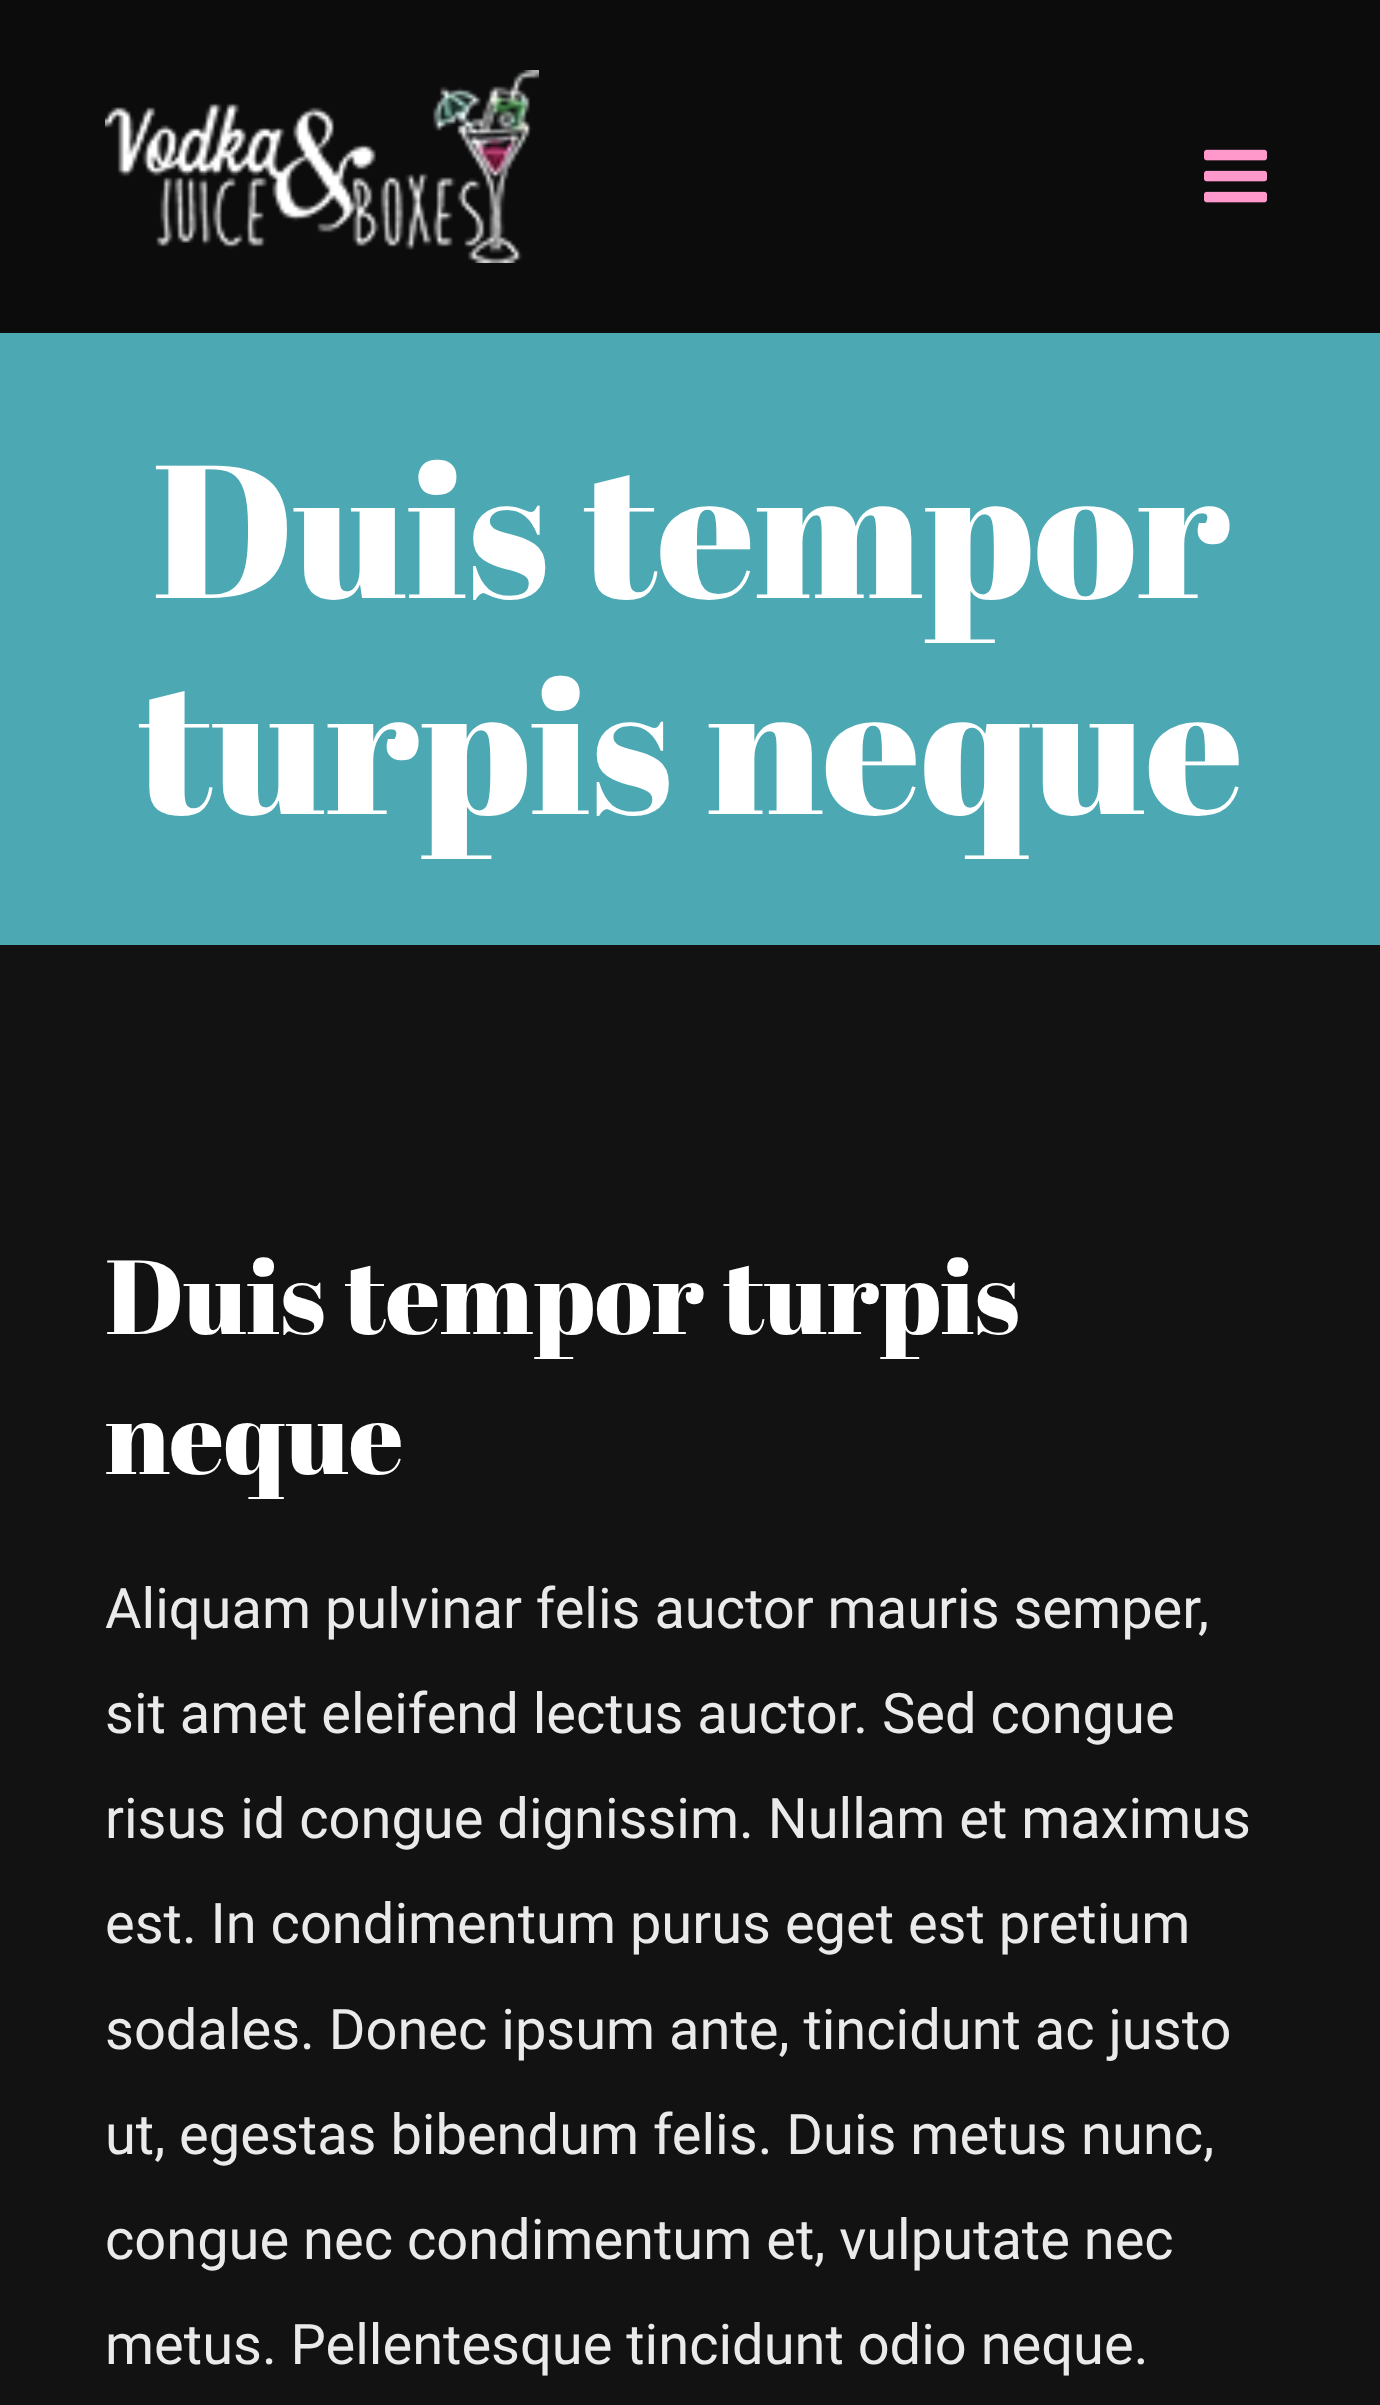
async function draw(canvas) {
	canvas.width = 1380;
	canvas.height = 2405;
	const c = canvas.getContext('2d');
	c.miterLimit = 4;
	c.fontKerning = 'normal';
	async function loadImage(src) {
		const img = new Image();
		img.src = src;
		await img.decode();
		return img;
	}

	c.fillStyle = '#121213';
	c.fillRect(0, 0, 1380, 2405);
	c.fillStyle = '#0c0c0d';
	c.fillRect(0, 0, 1380, 333);
	c.drawImage(await loadImage('img1.png'), 105, 70, 434, 193);
	c.drawImage(await loadImage('img2.png'), 1204, 149, 63, 54);
	c.fillStyle = '#4ca9b4';
	c.fillRect(0, 333, 1380, 612);
	c.font = '189px Abril Fatface';
	c.fillStyle = '#fff';
	c.fillText('Duis tempor', 152, 598);
	c.fillText('turpis neque', 138, 814);
	c.font = '105px Abril Fatface';
	c.fillText('Duis tempor turpis', 105, 1334);
	c.fillText('neque', 105, 1474);
	c.font = '56px Roboto';
	c.fillStyle = '#eaeaea';
	for (const [text, x, y] of [
		['Aliquam pulvinar felis auctor mauris semper,', 105, 1628],
		['sit amet eleifend lectus auctor. Sed congue', 105, 1733],
		['risus id congue dignissim. Nullam et maximus', 105, 1838],
		['est. In condimentum purus eget est pretium', 105, 1943],
		['sodales. Donec ipsum ante, tincidunt ac justo', 105, 2049],
		['ut, egestas bibendum felis. Duis metus nunc,', 105, 2154],
		['congue nec condimentum et, vulputate nec', 105, 2259],
		['metus. Pellentesque tincidunt odio neque.', 105, 2364],
	]) {
		c.fillText(text, x, y);
	}
}

draw(document.querySelector('canvas'));
